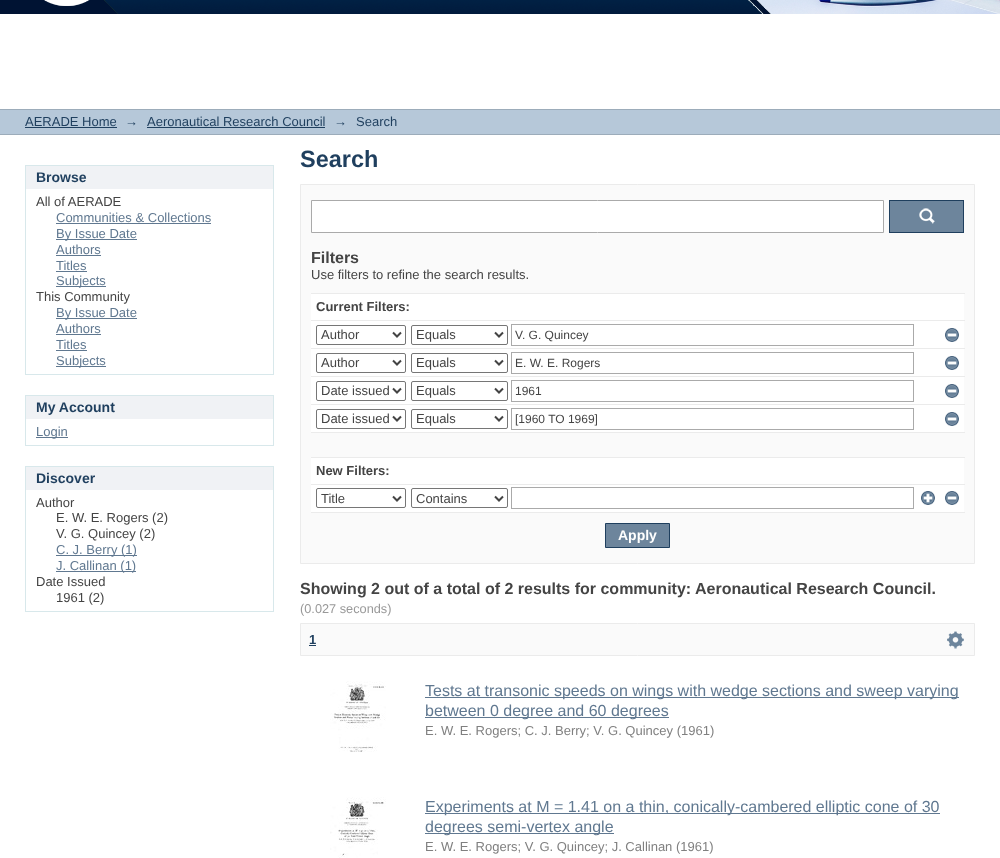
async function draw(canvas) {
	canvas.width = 1000;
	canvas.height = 858;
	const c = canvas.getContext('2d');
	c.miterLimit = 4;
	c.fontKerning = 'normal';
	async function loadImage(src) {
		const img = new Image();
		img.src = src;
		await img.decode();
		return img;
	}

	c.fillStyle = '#fff';
	c.fillRect(0, 0, 1000, 858);
	c.drawImage(await loadImage('img1.png'), 0, 0, 1000, 14);
	for (const [x, y, w, h, color] of [
		[0, 110, 1000, 24, '#b6c8d9'],
		[0, 109, 1000, 1, '#9cacba'],
		[0, 134, 1000, 1, '#9cacba'],
	]) {
		c.fillStyle = color;
		c.fillRect(x, y, w, h);
	}
	c.font = '13px Liberation Sans';
	c.fillStyle = '#1f3f5e';
	c.fillText('AERADE Home', 25, 126);
	c.fillRect(25, 127, 92, 1);
	c.fillText('→', 125, 126);
	c.fillText('Aeronautical Research Council', 147, 126);
	c.fillRect(147, 127, 178, 1);
	c.fillText('→', 334, 126);
	c.fillText('Search', 356, 126);
	for (const [x, y, w, h, color] of [
		[26, 166, 247, 23, '#f0f2f5'],
		[25, 165, 249, 1, '#d8e8eb'],
		[273, 165, 1, 210, '#d8e8eb'],
		[25, 165, 1, 24, '#d8e8eb'],
	]) {
		c.fillStyle = color;
		c.fillRect(x, y, w, h);
	}
	c.font = 'bold 14px Liberation Sans';
	c.fillStyle = '#1f3f5e';
	c.fillText('Browse', 36, 182);
	c.fillStyle = '#d8e8eb';
	c.fillRect(25, 374, 249, 1);
	c.fillRect(25, 189, 1, 186);
	c.font = '13px Liberation Sans';
	c.fillStyle = '#444';
	c.fillText('All of AERADE', 36, 206);
	c.fillStyle = '#607890';
	c.fillText('Communities & Collections', 56, 222);
	c.fillRect(56, 223, 155, 1);
	c.fillRect(56, 239, 81, 1);
	c.fillText('By Issue Date', 56, 238);
	c.fillText('Authors', 56, 254);
	c.fillRect(56, 255, 45, 1);
	c.fillText('Titles', 56, 270);
	c.fillRect(56, 271, 31, 1);
	c.fillRect(56, 286, 50, 1);
	c.fillText('Subjects', 56, 285);
	c.fillStyle = '#444';
	c.fillText('This Community', 36, 301);
	c.fillStyle = '#607890';
	c.fillRect(56, 318, 81, 1);
	c.fillText('By Issue Date', 56, 317);
	c.fillText('Authors', 56, 333);
	c.fillRect(56, 334, 45, 1);
	c.fillText('Titles', 56, 349);
	c.fillRect(56, 350, 31, 1);
	c.fillRect(56, 366, 50, 1);
	c.fillText('Subjects', 56, 365);
	for (const [x, y, w, h, color] of [
		[26, 396, 247, 23, '#f0f2f5'],
		[25, 395, 249, 1, '#d8e8eb'],
		[273, 395, 1, 51, '#d8e8eb'],
		[25, 395, 1, 24, '#d8e8eb'],
	]) {
		c.fillStyle = color;
		c.fillRect(x, y, w, h);
	}
	c.font = 'bold 14px Liberation Sans';
	c.fillStyle = '#1f3f5e';
	c.fillText('My Account', 36, 412);
	for (const [x, y, w, h, color] of [
		[25, 445, 249, 1, '#d8e8eb'],
		[25, 419, 1, 27, '#d8e8eb'],
		[36, 437, 32, 1, '#607890'],
	]) {
		c.fillStyle = color;
		c.fillRect(x, y, w, h);
	}
	c.font = '13px Liberation Sans';
	c.fillText('Login', 36, 436);
	for (const [x, y, w, h, color] of [
		[26, 467, 247, 23, '#f0f2f5'],
		[25, 466, 249, 1, '#d8e8eb'],
		[273, 466, 1, 146, '#d8e8eb'],
		[25, 466, 1, 24, '#d8e8eb'],
	]) {
		c.fillStyle = color;
		c.fillRect(x, y, w, h);
	}
	c.font = 'bold 14px Liberation Sans';
	c.fillStyle = '#1f3f5e';
	c.fillText('Discover', 36, 483);
	c.fillStyle = '#d8e8eb';
	c.fillRect(25, 611, 249, 1);
	c.fillRect(25, 490, 1, 122);
	c.font = '13px Liberation Sans';
	c.fillStyle = '#444';
	for (const [text, x, y] of [
		['Author', 36, 507],
		['E. W. E. Rogers (2)', 56, 522],
		['V. G. Quincey (2)', 56, 538],
	]) {
		c.fillText(text, x, y);
	}
	c.fillStyle = '#607890';
	c.fillRect(56, 555, 81, 1);
	c.fillText('C. J. Berry (1)', 56, 554);
	c.fillRect(56, 571, 80, 1);
	c.fillText('J. Callinan (1)', 56, 570);
	c.fillStyle = '#444';
	c.fillText('Date Issued', 36, 586);
	c.fillText('1961 (2)', 56, 602);
	c.font = 'bold 23.5px Liberation Sans';
	c.fillStyle = '#1f3f5e';
	c.fillText('Search', 300, 167);
	c.fillStyle = '#fafafa';
	c.beginPath();
	c.rect(300.5, 184.5, 674, 379);
	c.fill();
	c.strokeStyle = '#ebebeb';
	c.stroke();
	c.fillStyle = '#fff';
	c.beginPath();
	c.rect(311.5, 200.5, 572, 32);
	c.fill();
	c.strokeStyle = '#aaa';
	c.stroke();
	c.fillStyle = '#6d859c';
	c.fillRect(890, 201, 73, 31);
	c.drawImage(await loadImage('img2.png'), 919, 208, 16, 16);
	c.strokeStyle = '#1f3f5e';
	c.strokeRect(889.5, 200.5, 74, 32);
	c.font = 'bold 16px Liberation Sans';
	c.fillStyle = '#444';
	c.fillText('Filters', 311, 263);
	c.font = '13px Liberation Sans';
	c.fillText('Use filters to refine the search results.', 311, 279);
	c.fillStyle = '#fff';
	c.fillRect(311, 294, 653, 218);
	c.fillStyle = '#ebebeb';
	c.fillRect(311, 293, 654, 1);
	c.font = 'bold 13px Liberation Sans';
	c.fillStyle = '#444';
	c.fillText('Current Filters:', 316, 311);
	c.fillStyle = '#ebebeb';
	c.fillRect(311, 320, 654, 1);
	c.beginPath();
	c.roundRect(316.5, 325.5, 89, 19, 1.5);
	c.strokeStyle = '#767676';
	c.stroke();
	c.beginPath();
	c.moveTo(393, 332.5);
	c.lineTo(397, 336.5);
	c.lineTo(401, 332.5);
	c.strokeStyle = '#444';
	c.lineWidth = 2;
	c.stroke();
	c.font = '13px Liberation Sans';
	c.fillStyle = '#444';
	c.fillText('Author', 321, 339);
	c.beginPath();
	c.roundRect(411.5, 325.5, 96, 19, 1.5);
	c.strokeStyle = '#767676';
	c.lineWidth = 1;
	c.stroke();
	c.beginPath();
	c.moveTo(495, 332.5);
	c.lineTo(499, 336.5);
	c.lineTo(503, 332.5);
	c.strokeStyle = '#444';
	c.lineWidth = 2;
	c.stroke();
	c.fillText('Equals', 416, 339);
	c.strokeStyle = '#aaa';
	c.lineWidth = 1;
	c.strokeRect(511.5, 324.5, 402, 21);
	c.font = '12px Liberation Sans';
	c.fillText('V. G. Quincey', 515, 339);
	c.drawImage(await loadImage('img3.png'), 945, 328, 14, 14);
	c.fillStyle = '#ebebeb';
	c.fillRect(311, 348, 654, 1);
	c.beginPath();
	c.roundRect(316.5, 353.5, 89, 19, 1.5);
	c.strokeStyle = '#767676';
	c.stroke();
	c.beginPath();
	c.moveTo(393, 360.5);
	c.lineTo(397, 364.5);
	c.lineTo(401, 360.5);
	c.strokeStyle = '#444';
	c.lineWidth = 2;
	c.stroke();
	c.font = '13px Liberation Sans';
	c.fillStyle = '#444';
	c.fillText('Author', 321, 367);
	c.beginPath();
	c.roundRect(411.5, 353.5, 96, 19, 1.5);
	c.strokeStyle = '#767676';
	c.lineWidth = 1;
	c.stroke();
	c.beginPath();
	c.moveTo(495, 360.5);
	c.lineTo(499, 364.5);
	c.lineTo(503, 360.5);
	c.strokeStyle = '#444';
	c.lineWidth = 2;
	c.stroke();
	c.fillText('Equals', 416, 367);
	c.strokeStyle = '#aaa';
	c.lineWidth = 1;
	c.strokeRect(511.5, 352.5, 402, 21);
	c.font = '12px Liberation Sans';
	c.fillText('E. W. E. Rogers', 515, 367);
	c.drawImage(await loadImage('img3.png'), 945, 356, 14, 14);
	c.fillStyle = '#ebebeb';
	c.fillRect(311, 376, 654, 1);
	c.beginPath();
	c.roundRect(316.5, 381.5, 89, 19, 1.5);
	c.strokeStyle = '#767676';
	c.stroke();
	c.beginPath();
	c.moveTo(393, 388.5);
	c.lineTo(397, 392.5);
	c.lineTo(401, 388.5);
	c.strokeStyle = '#444';
	c.lineWidth = 2;
	c.stroke();
	c.font = '13px Liberation Sans';
	c.fillStyle = '#444';
	c.fillText('Date issued', 321, 395);
	c.beginPath();
	c.roundRect(411.5, 381.5, 96, 19, 1.5);
	c.strokeStyle = '#767676';
	c.lineWidth = 1;
	c.stroke();
	c.beginPath();
	c.moveTo(495, 388.5);
	c.lineTo(499, 392.5);
	c.lineTo(503, 388.5);
	c.strokeStyle = '#444';
	c.lineWidth = 2;
	c.stroke();
	c.fillText('Equals', 416, 395);
	c.strokeStyle = '#aaa';
	c.lineWidth = 1;
	c.strokeRect(511.5, 380.5, 402, 21);
	c.font = '12px Liberation Sans';
	c.fillText('1961', 515, 395);
	c.drawImage(await loadImage('img3.png'), 945, 384, 14, 14);
	c.fillStyle = '#ebebeb';
	c.fillRect(311, 404, 654, 1);
	c.beginPath();
	c.roundRect(316.5, 409.5, 89, 19, 1.5);
	c.strokeStyle = '#767676';
	c.stroke();
	c.beginPath();
	c.moveTo(393, 416.5);
	c.lineTo(397, 420.5);
	c.lineTo(401, 416.5);
	c.strokeStyle = '#444';
	c.lineWidth = 2;
	c.stroke();
	c.font = '13px Liberation Sans';
	c.fillStyle = '#444';
	c.fillText('Date issued', 321, 423);
	c.beginPath();
	c.roundRect(411.5, 409.5, 96, 19, 1.5);
	c.strokeStyle = '#767676';
	c.lineWidth = 1;
	c.stroke();
	c.beginPath();
	c.moveTo(495, 416.5);
	c.lineTo(499, 420.5);
	c.lineTo(503, 416.5);
	c.strokeStyle = '#444';
	c.lineWidth = 2;
	c.stroke();
	c.fillText('Equals', 416, 423);
	c.strokeStyle = '#aaa';
	c.lineWidth = 1;
	c.strokeRect(511.5, 408.5, 402, 21);
	c.font = '12px Liberation Sans';
	c.fillText('[1960 TO 1969]', 515, 423);
	c.drawImage(await loadImage('img3.png'), 945, 412, 14, 14);
	for (const [x, y, w, h, color] of [
		[311, 433, 653, 24, '#fafafa'],
		[311, 432, 654, 1, '#ebebeb'],
		[311, 457, 654, 1, '#ebebeb'],
	]) {
		c.fillStyle = color;
		c.fillRect(x, y, w, h);
	}
	c.font = 'bold 13px Liberation Sans';
	c.fillStyle = '#444';
	c.fillText('New Filters:', 316, 475);
	c.fillStyle = '#ebebeb';
	c.fillRect(311, 484, 654, 1);
	c.beginPath();
	c.roundRect(316.5, 488.5, 89, 19, 1.5);
	c.strokeStyle = '#767676';
	c.stroke();
	c.beginPath();
	c.moveTo(393, 496.5);
	c.lineTo(397, 500.5);
	c.lineTo(401, 496.5);
	c.strokeStyle = '#444';
	c.lineWidth = 2;
	c.stroke();
	c.font = '13px Liberation Sans';
	c.fillStyle = '#444';
	c.fillText('Title', 321, 503);
	c.beginPath();
	c.roundRect(411.5, 488.5, 96, 19, 1.5);
	c.strokeStyle = '#767676';
	c.lineWidth = 1;
	c.stroke();
	c.beginPath();
	c.moveTo(495, 496.5);
	c.lineTo(499, 500.5);
	c.lineTo(503, 496.5);
	c.strokeStyle = '#444';
	c.lineWidth = 2;
	c.stroke();
	c.fillText('Contains', 416, 503);
	c.strokeStyle = '#aaa';
	c.lineWidth = 1;
	c.strokeRect(511.5, 487.5, 402, 21);
	c.drawImage(await loadImage('img4.png'), 921, 491, 14, 14);
	c.drawImage(await loadImage('img3.png'), 945, 491, 14, 14);
	c.fillStyle = '#ebebeb';
	c.fillRect(311, 512, 654, 1);
	c.fillStyle = '#6d859c';
	c.beginPath();
	c.rect(605.5, 523.5, 64, 24);
	c.fill();
	c.strokeStyle = '#1f3f5e';
	c.stroke();
	c.font = 'bold 14px Liberation Sans';
	c.fillStyle = '#fff';
	c.fillText('Apply', 618, 540);
	c.font = 'bold 16px Liberation Sans';
	c.fillStyle = '#444';
	c.fillText('Showing 2 out of a total of 2 results for community: Aeronautical Research Council.', 300, 594);
	c.font = '12.75px Liberation Sans';
	c.fillStyle = '#999';
	c.fillText('(0.027 seconds)', 300, 613);
	c.fillStyle = '#fafafa';
	c.beginPath();
	c.rect(300.5, 623.5, 674, 32);
	c.fill();
	c.strokeStyle = '#ebebeb';
	c.stroke();
	c.font = 'bold 13px Liberation Sans';
	c.fillStyle = '#1f3f5e';
	c.fillText('1', 309, 644);
	c.fillRect(309, 645, 7, 1);
	c.drawImage(await loadImage('img5.png'), 947, 631, 17, 18);
	c.drawImage(await loadImage('img6.png'), 330, 681, 56, 71);
	c.fillStyle = '#607890';
	c.fillRect(425, 697, 534, 1);
	c.font = '16px Liberation Sans';
	c.fillText('Tests at transonic speeds on wings with wedge sections and sweep varying', 425, 696);
	c.fillRect(425, 717, 244, 1);
	c.fillText('between 0 degree and 60 degrees', 425, 716);
	c.font = '13px Liberation Sans';
	c.fillStyle = '#808080';
	c.fillText('E. W. E. Rogers; C. J. Berry; V. G. Quincey (1961)', 425, 735);
	c.drawImage(await loadImage('img7.png'), 330, 797, 56, 61);
	c.fillStyle = '#607890';
	c.fillRect(425, 813, 515, 1);
	c.font = '16px Liberation Sans';
	c.fillText('Experiments at M = 1.41 on a thin, conically-cambered elliptic cone of 30', 425, 812);
	c.fillRect(425, 833, 189, 1);
	c.fillText('degrees semi-vertex angle', 425, 832);
	c.font = '13px Liberation Sans';
	c.fillStyle = '#808080';
	c.fillText('E. W. E. Rogers; V. G. Quincey; J. Callinan (1961)', 425, 851);
}

draw(document.querySelector('canvas'));
